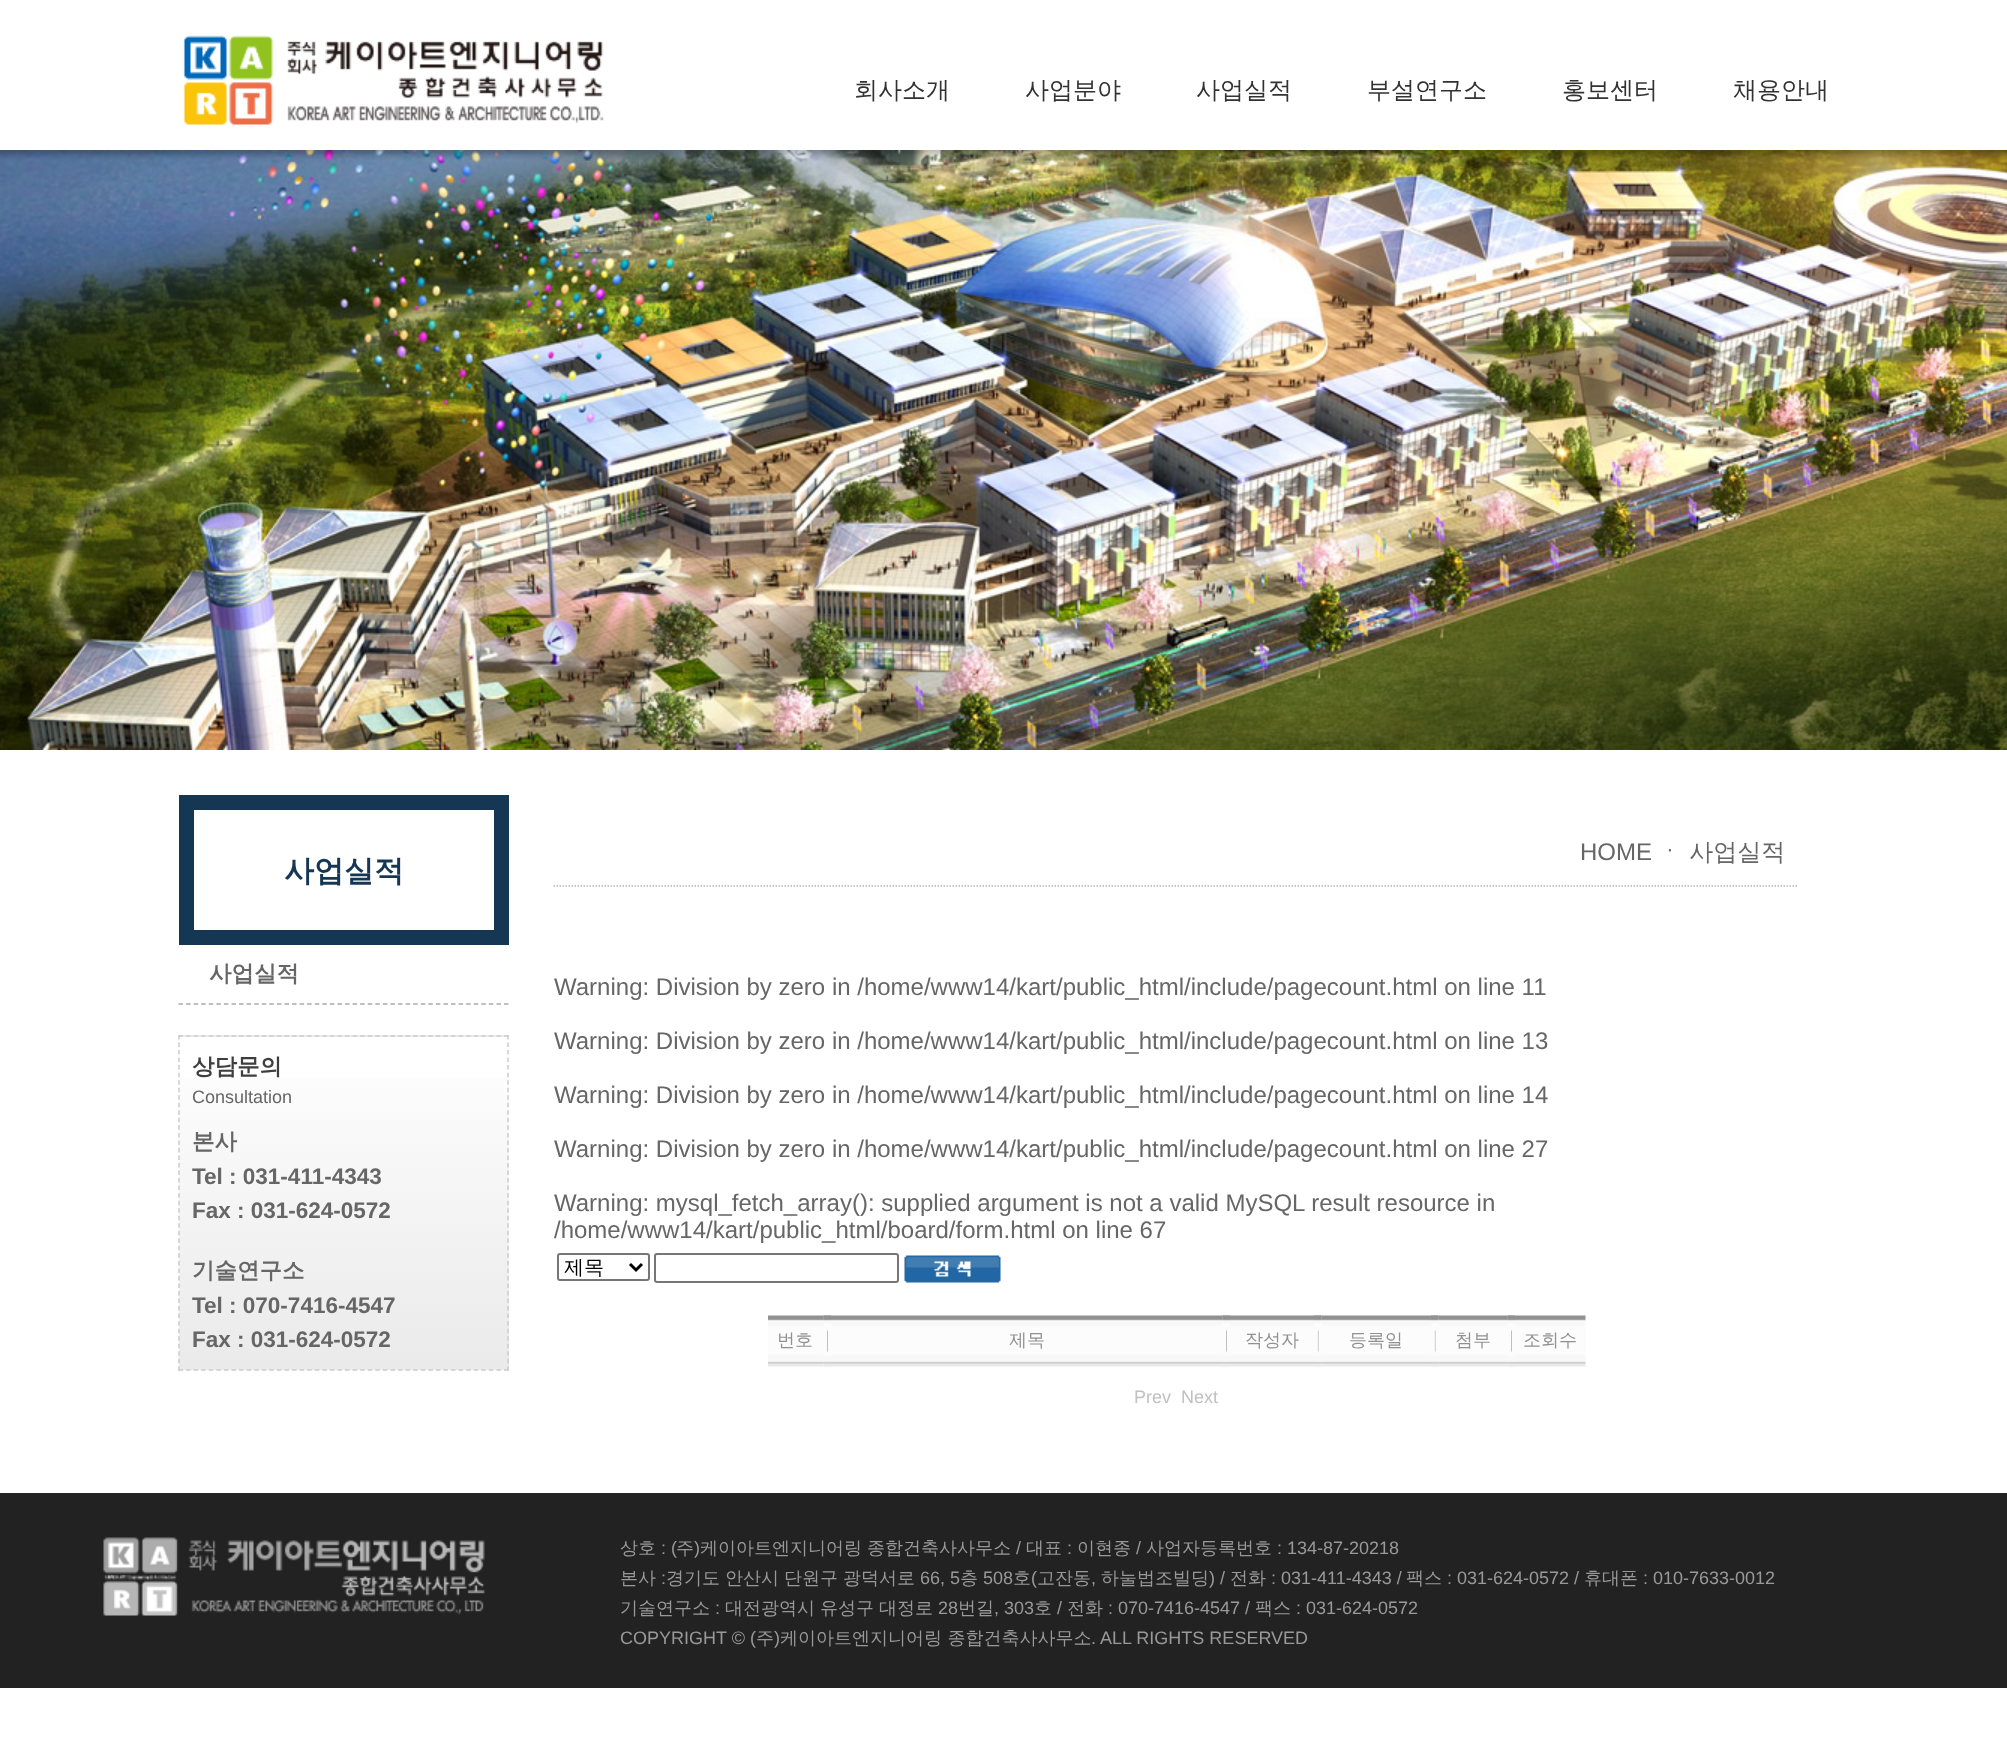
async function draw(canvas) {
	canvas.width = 2007;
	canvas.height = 1762;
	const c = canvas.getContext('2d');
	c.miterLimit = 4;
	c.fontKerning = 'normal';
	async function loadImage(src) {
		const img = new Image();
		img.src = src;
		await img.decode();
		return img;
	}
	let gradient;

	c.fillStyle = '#fff';
	c.fillRect(0, 0, 2007, 1762);
	c.drawImage(await loadImage('img1.png'), 183, 35, 421, 90);
	c.font = '500 24px WenQuanYi Zen Hei';
	c.fillStyle = '#323232';
	for (const [text, x, y] of [
		['회사소개', 854, 98],
		['사업분야', 1025, 98],
		['사업실적', 1196, 98],
		['부설연구소', 1367, 98],
		['홍보센터', 1562, 98],
		['채용안내', 1733, 98],
	]) {
		c.fillText(text, x, y);
	}
	c.drawImage(await loadImage('img2.png'), 0, 150, 2007, 600);
	c.strokeStyle = '#153753';
	c.lineWidth = 15;
	c.strokeRect(186.5, 802.5, 315, 135);
	c.font = 'bold 30px WenQuanYi Zen Hei';
	c.fillStyle = '#153753';
	c.fillText('사업실적', 284, 881);
	c.beginPath();
	c.moveTo(178.5, 1004);
	c.lineTo(508.5, 1004);
	c.strokeStyle = '#aaa';
	c.lineWidth = 1.5;
	c.setLineDash([4.5, 3.07]);
	c.stroke();
	c.font = 'bold 22.5px WenQuanYi Zen Hei';
	c.fillStyle = '#666';
	c.fillText('사업실적', 209, 981);
	c.fillStyle = '#eaeaea';
	c.fillRect(179, 1035, 330, 2);
	gradient = c.createLinearGradient(180, 1037, 180, 1370);
	gradient.addColorStop(0, '#fff');
	gradient.addColorStop(1, '#eaeaea');
	c.fillStyle = gradient;
	c.fillRect(179, 1077, 330, 293);
	c.beginPath();
	c.moveTo(178.5, 1036);
	c.lineTo(508.5, 1036);
	c.strokeStyle = '#ccc';
	c.stroke();
	c.beginPath();
	c.moveTo(508, 1035);
	c.lineTo(508, 1371);
	c.setLineDash([4.5, 3.03]);
	c.stroke();
	c.beginPath();
	c.moveTo(178.5, 1370);
	c.lineTo(508.5, 1370);
	c.setLineDash([4.5, 3.07]);
	c.stroke();
	c.beginPath();
	c.moveTo(179, 1035);
	c.lineTo(179, 1371);
	c.setLineDash([4.5, 3.03]);
	c.stroke();
	c.fillStyle = '#3e3e3e';
	c.fillText('상담문의', 192, 1074);
	c.font = '18px Liberation Sans';
	c.fillStyle = '#666';
	c.fillText('Consultation', 192, 1103);
	c.font = 'bold 22.5px WenQuanYi Zen Hei';
	c.fillText('본사', 192, 1149);
	c.font = 'bold 22.5px Liberation Sans';
	c.fillText('Tel : 031-411-4343', 192, 1184);
	c.fillText('Fax : 031-624-0572', 192, 1218);
	c.font = 'bold 22.5px WenQuanYi Zen Hei';
	c.fillText('기술연구소', 192, 1278);
	c.font = 'bold 22.5px Liberation Sans';
	c.fillText('Tel : 070-7416-4547', 192, 1313);
	c.fillText('Fax : 031-624-0572', 192, 1347);
	c.beginPath();
	c.moveTo(553.5, 886);
	c.lineTo(1798.5, 886);
	c.strokeStyle = '#b5b5b5';
	c.setLineDash([1.5, 1.5]);
	c.stroke();
	c.font = '24px Liberation Sans';
	c.fillText('HOME', 1580, 860);
	c.font = '500 24px WenQuanYi Zen Hei';
	c.fillText('ㆍ 사업실적', 1658, 860);
	c.font = '24px Liberation Sans';
	for (const [text, x, y] of [
		['Warning: Division by zero in /home/www14/kart/public_html/include/pagecount.html on line 11', 554, 995],
		['Warning: Division by zero in /home/www14/kart/public_html/include/pagecount.html on line 13', 554, 1049],
		['Warning: Division by zero in /home/www14/kart/public_html/include/pagecount.html on line 14', 554, 1103],
		['Warning: Division by zero in /home/www14/kart/public_html/include/pagecount.html on line 27', 554, 1157],
		['Warning: mysql_fetch_array(): supplied argument is not a valid MySQL result resource in', 554, 1211],
		['/home/www14/kart/public_html/board/form.html on line 67', 554, 1238],
	]) {
		c.fillText(text, x, y);
	}
	c.beginPath();
	c.roundRect(558, 1254, 91, 26, 2);
	c.strokeStyle = '#767676';
	c.lineWidth = 2;
	c.setLineDash([]);
	c.stroke();
	c.beginPath();
	c.moveTo(630, 1264);
	c.lineTo(636, 1270);
	c.lineTo(642, 1264);
	c.strokeStyle = '#000';
	c.lineWidth = 3;
	c.stroke();
	c.font = '500 20px WenQuanYi Zen Hei';
	c.fillStyle = '#000';
	c.fillText('제목', 564, 1274);
	c.beginPath();
	c.roundRect(655, 1254, 243, 28, 2);
	c.strokeStyle = '#767676';
	c.lineWidth = 2;
	c.stroke();
	c.drawImage(await loadImage('img3.png'), 904, 1255, 97, 28);
	c.drawImage(await loadImage('img4.png'), 768, 1315, 56, 52);
	c.font = '500 18px WenQuanYi Zen Hei';
	c.fillStyle = '#919191';
	c.fillText('번호', 777, 1346);
	c.drawImage(await loadImage('img5.png'), 823, 1315, 8, 52);
	c.drawImage(await loadImage('img6.png'), 823, 1315, 8, 52);
	c.drawImage(await loadImage('img7.png'), 831, 1315, 392, 52);
	c.fillText('제목', 1009, 1346);
	c.drawImage(await loadImage('img5.png'), 1222, 1315, 8, 52);
	c.drawImage(await loadImage('img6.png'), 1222, 1315, 8, 52);
	c.drawImage(await loadImage('img8.png'), 1230, 1315, 84, 52);
	c.fillText('작성자', 1245, 1346);
	c.drawImage(await loadImage('img9.png'), 1314, 1315, 8, 52);
	c.drawImage(await loadImage('img11.png'), 1321, 1315, 110, 52);
	c.drawImage(await loadImage('img10.png'), 1314, 1315, 8, 52);
	c.fillText('등록일', 1349, 1346);
	c.drawImage(await loadImage('img9.png'), 1431, 1315, 8, 52);
	c.drawImage(await loadImage('img12.png'), 1438, 1315, 70, 52);
	c.drawImage(await loadImage('img10.png'), 1431, 1315, 8, 52);
	c.fillText('첨부', 1455, 1346);
	c.drawImage(await loadImage('img5.png'), 1507, 1315, 8, 52);
	c.drawImage(await loadImage('img6.png'), 1507, 1315, 8, 52);
	c.drawImage(await loadImage('img13.png'), 1515, 1315, 71, 52);
	c.fillText('조회수', 1523, 1346);
	c.font = '18px Liberation Sans';
	c.fillStyle = '#c0c0c0';
	c.fillText('Prev', 1134, 1403);
	c.fillText('Next', 1181, 1403);
	c.fillStyle = '#222';
	c.fillRect(0, 1493, 2007, 195);
	c.drawImage(await loadImage('img14.png'), 103, 1537, 382, 79);
	c.font = '500 18px WenQuanYi Zen Hei';
	c.fillStyle = '#999';
	c.fillText('상호', 620, 1554);
	c.font = '18px Liberation Sans';
	c.fillText(': (', 661, 1554);
	c.font = '500 18px WenQuanYi Zen Hei';
	c.fillText('주', 676, 1554);
	c.font = '18px Liberation Sans';
	c.fillText(')', 694, 1554);
	c.font = '500 18px WenQuanYi Zen Hei';
	c.fillText('케이아트엔지니어링', 700, 1554);
	c.fillText('종합건축사사무소', 867, 1554);
	c.font = '18px Liberation Sans';
	c.fillText('/', 1016, 1554);
	c.font = '500 18px WenQuanYi Zen Hei';
	c.fillText('대표', 1026, 1554);
	c.font = '18px Liberation Sans';
	c.fillText(':', 1067, 1554);
	c.font = '500 18px WenQuanYi Zen Hei';
	c.fillText('이현종', 1077, 1554);
	c.font = '18px Liberation Sans';
	c.fillText('/', 1136, 1554);
	c.font = '500 18px WenQuanYi Zen Hei';
	c.fillText('사업자등록번호', 1146, 1554);
	c.font = '18px Liberation Sans';
	c.fillText(': 134-87-20218', 1277, 1554);
	c.font = '500 18px WenQuanYi Zen Hei';
	c.fillText('본사', 620, 1584);
	c.font = '18px Liberation Sans';
	c.fillText(':', 661, 1584);
	c.font = '500 18px WenQuanYi Zen Hei';
	for (const [text, x, y] of [
		['경기도', 666, 1584],
		['안산시', 725, 1584],
		['단원구', 784, 1584],
		['광덕서로', 843, 1584],
	]) {
		c.fillText(text, x, y);
	}
	c.font = '18px Liberation Sans';
	c.fillText('66, 5', 920, 1584);
	c.font = '500 18px WenQuanYi Zen Hei';
	c.fillText('층', 960, 1584);
	c.font = '18px Liberation Sans';
	c.fillText('508', 983, 1584);
	c.font = '500 18px WenQuanYi Zen Hei';
	c.fillText('호', 1013, 1584);
	c.font = '18px Liberation Sans';
	c.fillText('(', 1031, 1584);
	c.font = '500 18px WenQuanYi Zen Hei';
	c.fillText('고잔동', 1037, 1584);
	c.fillText('하눌법조빌딩', 1101, 1584);
	c.font = '18px Liberation Sans';
	c.fillText(') /', 1209, 1584);
	c.font = '500 18px WenQuanYi Zen Hei';
	c.fillText('전화', 1230, 1584);
	c.font = '18px Liberation Sans';
	c.fillText(': 031-411-4343 /', 1271, 1584);
	c.font = '500 18px WenQuanYi Zen Hei';
	c.fillText('팩스', 1406, 1584);
	c.font = '18px Liberation Sans';
	c.fillText(': 031-624-0572 /', 1447, 1584);
	c.font = '500 18px WenQuanYi Zen Hei';
	c.fillText('휴대폰', 1584, 1584);
	c.font = '18px Liberation Sans';
	c.fillText(': 010-7633-0012', 1643, 1584);
	c.fillText(',', 1091, 1584);
	c.font = '500 18px WenQuanYi Zen Hei';
	c.fillText('기술연구소', 620, 1614);
	c.font = '18px Liberation Sans';
	c.fillText(':', 715, 1614);
	c.font = '500 18px WenQuanYi Zen Hei';
	for (const [text, x, y] of [
		['대전광역시', 725, 1614],
		['유성구', 820, 1614],
		['대정로', 879, 1614],
	]) {
		c.fillText(text, x, y);
	}
	c.font = '18px Liberation Sans';
	c.fillText('28', 938, 1614);
	c.font = '500 18px WenQuanYi Zen Hei';
	c.fillText('번길', 958, 1614);
	c.font = '18px Liberation Sans';
	c.fillText(', 303', 994, 1614);
	c.font = '500 18px WenQuanYi Zen Hei';
	c.fillText('호', 1034, 1614);
	c.font = '18px Liberation Sans';
	c.fillText('/', 1057, 1614);
	c.font = '500 18px WenQuanYi Zen Hei';
	c.fillText('전화', 1067, 1614);
	c.font = '18px Liberation Sans';
	c.fillText(': 070-7416-4547 /', 1108, 1614);
	c.font = '500 18px WenQuanYi Zen Hei';
	c.fillText('팩스', 1255, 1614);
	c.font = '18px Liberation Sans';
	c.fillText(': 031-624-0572', 1296, 1614);
	c.fillText('COPYRIGHT © (', 620, 1644);
	c.font = '500 18px WenQuanYi Zen Hei';
	c.fillText('주', 756, 1644);
	c.font = '18px Liberation Sans';
	c.fillText(')', 774, 1644);
	c.font = '500 18px WenQuanYi Zen Hei';
	c.fillText('케이아트엔지니어링 종합건축사사무소', 780, 1644);
	c.font = '18px Liberation Sans';
	c.fillText('. ALL RIGHTS RESERVED', 1091, 1644);
}

draw(document.querySelector('canvas'));
